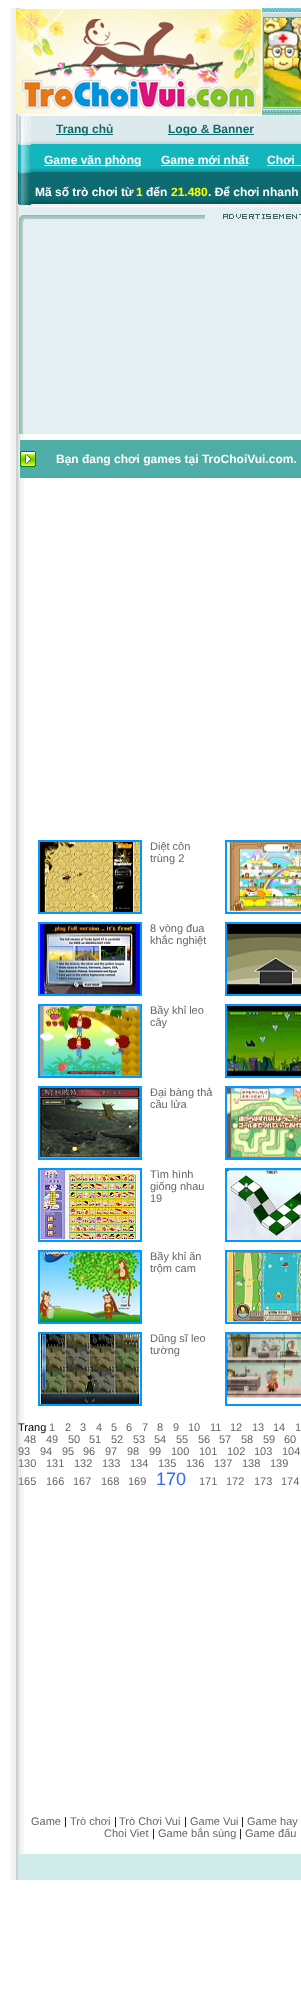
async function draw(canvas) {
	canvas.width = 301;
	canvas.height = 1999;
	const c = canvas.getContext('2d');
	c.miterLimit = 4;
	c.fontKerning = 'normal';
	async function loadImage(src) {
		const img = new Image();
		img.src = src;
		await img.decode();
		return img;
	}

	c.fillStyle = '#fff';
	c.fillRect(0, 0, 301, 1999);
	c.drawImage(await loadImage('img1.png'), 10, 8, 14, 1872);
	c.drawImage(await loadImage('img2.png'), 16, 9, 245, 105);
	c.drawImage(await loadImage('img3.png'), 262, 8, 39, 107);
	c.drawImage(await loadImage('img4.png'), 263, 17, 38, 90);
	c.drawImage(await loadImage('img5.png'), 18, 115, 283, 91);
	c.drawImage(await loadImage('img6.png'), 19, 116, 12, 89);
	c.fillStyle = '#0f6a6f';
	c.fillRect(56, 134, 57, 1);
	c.font = 'bold 12px Liberation Sans';
	c.fillText('Trang chủ', 56, 133);
	c.fillRect(168, 134, 86, 1);
	c.fillText('Logo & Banner', 168, 133);
	c.fillStyle = '#fff';
	c.fillRect(44, 165, 97, 1);
	c.fillText('Game văn phòng', 44, 164);
	c.fillText('Game mới nhất', 161, 164);
	c.fillRect(161, 165, 87, 1);
	c.fillText('Chơi', 267, 164);
	c.fillRect(267, 165, 34, 1);
	c.fillText('Mã số trò chơi từ', 35, 196);
	c.fillStyle = '#ff0';
	c.fillText('1', 136, 196);
	c.fillStyle = '#fff';
	c.fillText('đến', 146, 196);
	c.fillStyle = '#ff0';
	c.fillText('21.480', 171, 196);
	c.fillStyle = '#fff';
	c.fillText('. Để chơi nhanh', 208, 196);
	c.drawImage(await loadImage('img7.png'), 19, 207, 282, 227);
	c.fillStyle = '#4eada6';
	c.fillRect(20, 440, 281, 38);
	c.drawImage(await loadImage('img8.png'), 20, 451, 16, 16);
	c.fillStyle = '#fff';
	c.fillText('Bạn đang chơi games tại TroChoiVui.com.', 56, 463);
	c.strokeStyle = '#09f';
	c.lineWidth = 2;
	c.strokeRect(39, 841, 102, 72);
	c.drawImage(await loadImage('img9.png'), 40, 842, 100, 70);
	c.font = '11px Liberation Sans';
	c.fillStyle = '#666';
	c.fillText('Diệt côn', 150, 850);
	c.fillText('trùng 2', 150, 862);
	c.strokeRect(226, 841, 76, 72);
	c.drawImage(await loadImage('img10.png'), 227, 842, 74, 70);
	c.strokeRect(39, 923, 102, 72);
	c.drawImage(await loadImage('img11.png'), 40, 924, 100, 70);
	c.fillText('8 vòng đua', 150, 932);
	c.fillText('khắc nghiệt', 150, 944);
	c.strokeRect(226, 923, 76, 72);
	c.drawImage(await loadImage('img12.png'), 227, 924, 74, 70);
	c.strokeRect(39, 1005, 102, 72);
	c.drawImage(await loadImage('img13.png'), 40, 1006, 100, 70);
	c.fillText('Bầy khỉ leo', 150, 1014);
	c.fillText('cây', 150, 1026);
	c.strokeRect(226, 1005, 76, 72);
	c.drawImage(await loadImage('img14.png'), 227, 1006, 74, 70);
	c.strokeRect(39, 1087, 102, 72);
	c.drawImage(await loadImage('img15.png'), 40, 1088, 100, 70);
	c.fillText('Đại bàng thả', 150, 1096);
	c.fillText('cầu lửa', 150, 1108);
	c.strokeRect(226, 1087, 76, 72);
	c.drawImage(await loadImage('img16.png'), 227, 1088, 74, 70);
	c.strokeRect(39, 1169, 102, 72);
	c.drawImage(await loadImage('img17.png'), 40, 1170, 100, 70);
	for (const [text, x, y] of [
		['Tìm hình', 150, 1178],
		['giống nhau', 150, 1190],
		['19', 150, 1202],
	]) {
		c.fillText(text, x, y);
	}
	c.strokeRect(226, 1169, 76, 72);
	c.drawImage(await loadImage('img18.png'), 227, 1170, 74, 70);
	c.strokeRect(39, 1251, 102, 72);
	c.drawImage(await loadImage('img19.png'), 40, 1252, 100, 70);
	c.fillText('Bầy khỉ ăn', 150, 1260);
	c.fillText('trộm cam', 150, 1272);
	c.strokeRect(226, 1251, 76, 72);
	c.drawImage(await loadImage('img20.png'), 227, 1252, 74, 70);
	c.strokeRect(39, 1333, 102, 72);
	c.drawImage(await loadImage('img21.png'), 40, 1334, 100, 70);
	c.fillText('Dũng sĩ leo', 150, 1342);
	c.fillText('tường', 150, 1354);
	c.strokeRect(226, 1333, 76, 72);
	c.drawImage(await loadImage('img22.png'), 227, 1334, 74, 65);
	c.fillStyle = '#000';
	c.fillText('Trang', 18, 1431);
	c.fillStyle = '#666';
	for (const [text, x, y] of [
		['1', 49, 1431],
		['2', 65, 1431],
		['3', 80, 1431],
		['4', 96, 1431],
		['5', 111, 1431],
		['6', 126, 1431],
		['7', 142, 1431],
		['8', 157, 1431],
		['9', 173, 1431],
		['10', 188, 1431],
		['11', 210, 1431],
		['12', 230, 1431],
		['13', 252, 1431],
		['14', 273, 1431],
		['1', 295, 1431],
		['48', 24, 1443],
		['49', 46, 1443],
		['50', 68, 1443],
		['51', 89, 1443],
		['52', 111, 1443],
		['53', 133, 1443],
		['54', 154, 1443],
		['55', 176, 1443],
		['56', 198, 1443],
		['57', 219, 1443],
		['58', 241, 1443],
		['59', 263, 1443],
		['60', 284, 1443],
		['93', 18, 1455],
		['94', 40, 1455],
		['95', 62, 1455],
		['96', 83, 1455],
		['97', 105, 1455],
		['98', 127, 1455],
		['99', 149, 1455],
		['100', 171, 1455],
		['101', 199, 1455],
		['102', 227, 1455],
		['103', 254, 1455],
		['104', 282, 1455],
		['130', 18, 1467],
		['131', 46, 1467],
		['132', 74, 1467],
		['133', 102, 1467],
		['134', 130, 1467],
		['135', 158, 1467],
		['136', 186, 1467],
		['137', 214, 1467],
		['138', 242, 1467],
		['139', 270, 1467],
		['165', 18, 1485],
		['166', 46, 1485],
		['167', 73, 1485],
		['168', 101, 1485],
		['169', 128, 1485],
	]) {
		c.fillText(text, x, y);
	}
	c.font = '18px Liberation Sans';
	c.fillStyle = '#36f';
	c.fillText('170', 156, 1485);
	c.font = '11px Liberation Sans';
	c.fillStyle = '#666';
	for (const [text, x, y] of [
		['171', 199, 1485],
		['172', 226, 1485],
		['173', 254, 1485],
		['174', 281, 1485],
		['Game', 31, 1825],
	]) {
		c.fillText(text, x, y);
	}
	c.fillStyle = '#000';
	c.fillText('|', 64, 1825);
	c.fillStyle = '#666';
	c.fillText('Trò chơi', 70, 1825);
	c.fillStyle = '#000';
	c.fillText('|', 114, 1825);
	c.fillStyle = '#666';
	c.fillText('Trò Chơi Vui', 119, 1825);
	c.fillStyle = '#000';
	c.fillText('|', 184, 1825);
	c.fillStyle = '#666';
	c.fillText('Game Vui', 190, 1825);
	c.fillStyle = '#000';
	c.fillText('|', 241, 1825);
	c.fillStyle = '#666';
	c.fillText('Game hay', 247, 1825);
	c.fillText('Choi Viet', 104, 1837);
	c.fillStyle = '#000';
	c.fillText('|', 152, 1837);
	c.fillStyle = '#666';
	c.fillText('Game bắn súng', 158, 1837);
	c.fillStyle = '#000';
	c.fillText('|', 239, 1837);
	c.fillStyle = '#666';
	c.fillText('Game đấu', 245, 1837);
	c.fillStyle = '#cfecea';
	c.fillRect(18, 1854, 283, 26);
}

draw(document.querySelector('canvas'));
